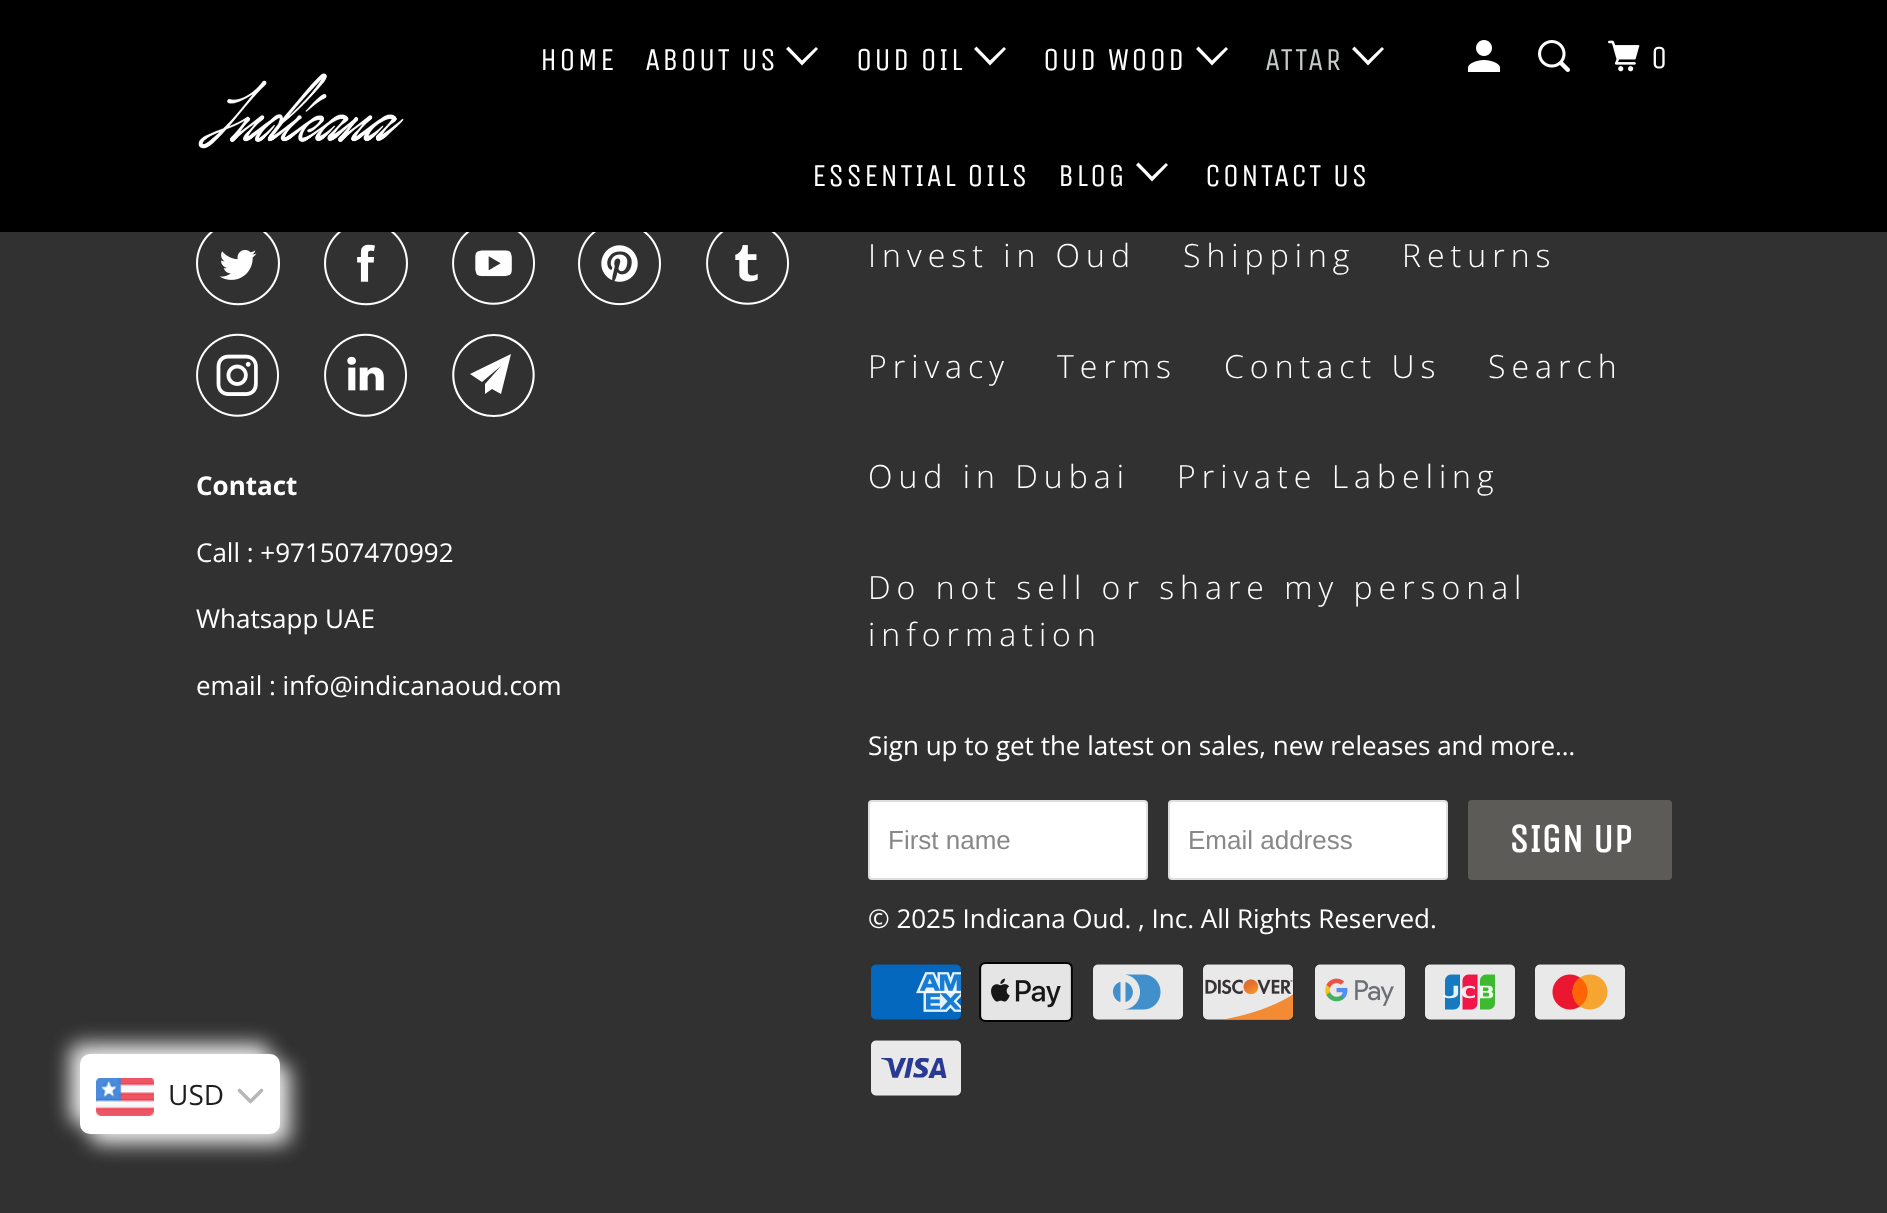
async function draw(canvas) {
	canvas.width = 1887;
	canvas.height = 1213;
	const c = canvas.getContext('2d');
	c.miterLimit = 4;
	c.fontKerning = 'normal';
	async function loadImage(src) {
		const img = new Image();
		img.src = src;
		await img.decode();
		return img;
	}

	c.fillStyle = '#313131';
	c.fillRect(0, 0, 1887, 1213);
	c.fillStyle = '#000';
	c.fillRect(0, 0, 1887, 232);
	c.drawImage(await loadImage('img1.png'), 198, 73, 206, 76);
	c.letterSpacing = '2px';
	c.font = '32px Unica One';
	c.fillStyle = '#fff';
	c.fillText('HOME', 540, 70);
	c.fillText('ABOUT US', 645, 70);
	c.beginPath();
	c.moveTo(794, 57);
	c.lineTo(786, 49);
	c.lineTo(788.5, 46.5);
	c.lineTo(802, 60.5);
	c.lineTo(816, 47);
	c.lineTo(818, 49);
	c.lineTo(802, 65.5);
	c.closePath();
	c.fill();
	c.fillText('OUD OIL', 856, 70);
	c.beginPath();
	c.moveTo(982, 57);
	c.lineTo(974, 49);
	c.lineTo(976.5, 46.5);
	c.lineTo(990, 60.5);
	c.lineTo(1004, 47);
	c.lineTo(1006, 49);
	c.lineTo(990, 65.5);
	c.closePath();
	c.fill();
	c.fillText('OUD WOOD', 1043, 70);
	c.beginPath();
	c.moveTo(1204, 57);
	c.lineTo(1196, 49);
	c.lineTo(1198.5, 46.5);
	c.lineTo(1212, 60.5);
	c.lineTo(1226, 47);
	c.lineTo(1228, 49);
	c.lineTo(1212, 65.5);
	c.closePath();
	c.fill();
	c.fillStyle = '#c6caca';
	c.fillText('ATTAR', 1265, 70);
	c.fillStyle = '#fff';
	c.beginPath();
	c.moveTo(1360, 57);
	c.lineTo(1352, 49);
	c.lineTo(1354.5, 46.5);
	c.lineTo(1368, 60.5);
	c.lineTo(1382, 47);
	c.lineTo(1384, 49);
	c.lineTo(1368, 65.5);
	c.closePath();
	c.fill();
	c.fillText('ESSENTIAL OILS', 812, 186);
	c.fillText('BLOG', 1058, 186);
	c.beginPath();
	c.moveTo(1144, 173);
	c.lineTo(1136, 165);
	c.lineTo(1138.5, 162.5);
	c.lineTo(1152, 176.5);
	c.lineTo(1166, 163);
	c.lineTo(1168, 165);
	c.lineTo(1152, 181.5);
	c.closePath();
	c.fill();
	c.fillText('CONTACT US', 1205, 186);
	c.drawImage(await loadImage('img2.png'), 1468, 40, 32, 32);
	c.drawImage(await loadImage('img3.png'), 1538, 40, 32, 32);
	c.drawImage(await loadImage('img4.png'), 1608, 40, 32, 32);
	c.fillText('0', 1651, 68);
	c.drawImage(await loadImage('img5.png'), 196, 232, 84, 74);
	c.drawImage(await loadImage('img6.png'), 324, 232, 84, 74);
	c.drawImage(await loadImage('img7.png'), 452, 232, 83, 73);
	c.drawImage(await loadImage('img8.png'), 578, 232, 83, 74);
	c.drawImage(await loadImage('img9.png'), 706, 232, 83, 73);
	c.drawImage(await loadImage('img10.png'), 196, 333, 83, 84);
	c.drawImage(await loadImage('img11.png'), 324, 333, 83, 84);
	c.beginPath();
	c.moveTo(501, 394);
	c.lineTo(492, 389);
	c.lineTo(485, 394);
	c.lineTo(485, 384);
	c.lineTo(501, 366);
	c.lineTo(482, 382);
	c.lineTo(470, 374);
	c.lineTo(511, 354);
	c.closePath();
	c.moveTo(494, 336);
	c.bezierCurveTo(485, 336, 477, 339, 470, 344);
	c.bezierCurveTo(440, 366, 456, 415, 494, 415);
	c.bezierCurveTo(531, 415, 547, 366, 517, 344);
	c.bezierCurveTo(510, 339, 502, 336, 494, 336);
	c.closePath();
	c.moveTo(494, 417);
	c.bezierCurveTo(454, 417, 437, 366, 469, 342);
	c.bezierCurveTo(476, 337, 485, 334, 494, 334);
	c.bezierCurveTo(503, 334, 511, 337, 518, 342);
	c.bezierCurveTo(550, 366, 533, 417, 494, 417);
	c.closePath();
	c.fill();
	c.letterSpacing = '0px';
	c.font = 'bold 26px Open Sans';
	c.fillText('Contact', 196, 495);
	c.font = '26px Open Sans';
	for (const [text, x, y] of [
		['Call : +971507470992', 196, 562],
		['Whatsapp UAE', 196, 628],
		['email : info@indicanaoud.com', 196, 695],
	]) {
		c.fillText(text, x, y);
	}
	c.letterSpacing = '6px';
	c.font = '300 32px Open Sans';
	for (const [text, x, y] of [
		['Invest in Oud', 868, 267],
		['Shipping', 1183, 267],
		['Returns', 1402, 267],
		['Privacy', 868, 378],
		['Terms', 1057, 378],
		['Contact Us', 1224, 378],
		['Search', 1488, 378],
		['Oud in Dubai', 868, 488],
		['Private Labeling', 1177, 488],
		['Do not sell or share my personal', 868, 599],
		['information', 868, 646],
	]) {
		c.fillText(text, x, y);
	}
	c.letterSpacing = '0px';
	c.font = '26px Open Sans';
	c.fillText('Sign up to get the latest on sales, new releases and more…', 868, 755);
	c.beginPath();
	c.roundRect(869, 801, 278, 78, 3);
	c.fill();
	c.strokeStyle = '#dfdfdf';
	c.lineWidth = 2;
	c.stroke();
	c.font = '26px Liberation Sans';
	c.fillStyle = '#888';
	c.fillText('First name', 888, 849);
	c.fillStyle = '#fff';
	c.beginPath();
	c.roundRect(1169, 801, 278, 78, 3);
	c.fill();
	c.stroke();
	c.fillStyle = '#888';
	c.fillText('Email address', 1188, 849);
	c.fillStyle = '#5d5b58';
	c.beginPath();
	c.roundRect(1468, 800, 204, 80, 4);
	c.fill();
	c.font = 'bold 40px Unica One';
	c.fillStyle = '#fff';
	c.fillText('SIGN UP', 1509, 852);
	c.font = '26px Open Sans';
	c.fillText('© 2025 Indicana Oud. , Inc. All Rights Reserved.', 868, 928);
	c.drawImage(await loadImage('img12.png'), 871, 964, 90, 56);
	c.drawImage(await loadImage('img13.png'), 979, 962, 94, 60);
	c.drawImage(await loadImage('img14.png'), 1093, 964, 90, 56);
	c.drawImage(await loadImage('img15.png'), 1203, 964, 91, 56);
	c.drawImage(await loadImage('img16.png'), 1315, 964, 90, 56);
	c.drawImage(await loadImage('img17.png'), 1425, 964, 90, 56);
	c.drawImage(await loadImage('img18.png'), 1535, 964, 90, 56);
	c.drawImage(await loadImage('img19.png'), 871, 1040, 90, 56);
	c.fillStyle = '#e8e8e8';
	c.filter = 'blur(10px)';
	c.beginPath();
	c.roundRect(70, 1044, 200, 80, 10);
	c.fill();
	c.filter = 'none';
	c.filter = 'blur(10px)';
	c.beginPath();
	c.roundRect(90, 1064, 200, 80, 10);
	c.fill();
	c.filter = 'none';
	c.fillStyle = '#fff';
	c.beginPath();
	c.roundRect(80, 1054, 200, 80, 10);
	c.fill();
	c.drawImage(await loadImage('img20.png'), 96, 1078, 58, 38);
	c.font = '28px Open Sans';
	c.fillStyle = '#1e1e1e';
	c.fillText('USD', 168, 1105);
	c.beginPath();
	c.moveTo(239.5, 1090.5);
	c.lineTo(250.5, 1101.5);
	c.lineTo(261.5, 1090.5);
	c.strokeStyle = '#b7b7b7';
	c.lineWidth = 3.6;
	c.lineCap = 'round';
	c.lineJoin = 'round';
	c.stroke();
}

draw(document.querySelector('canvas'));
